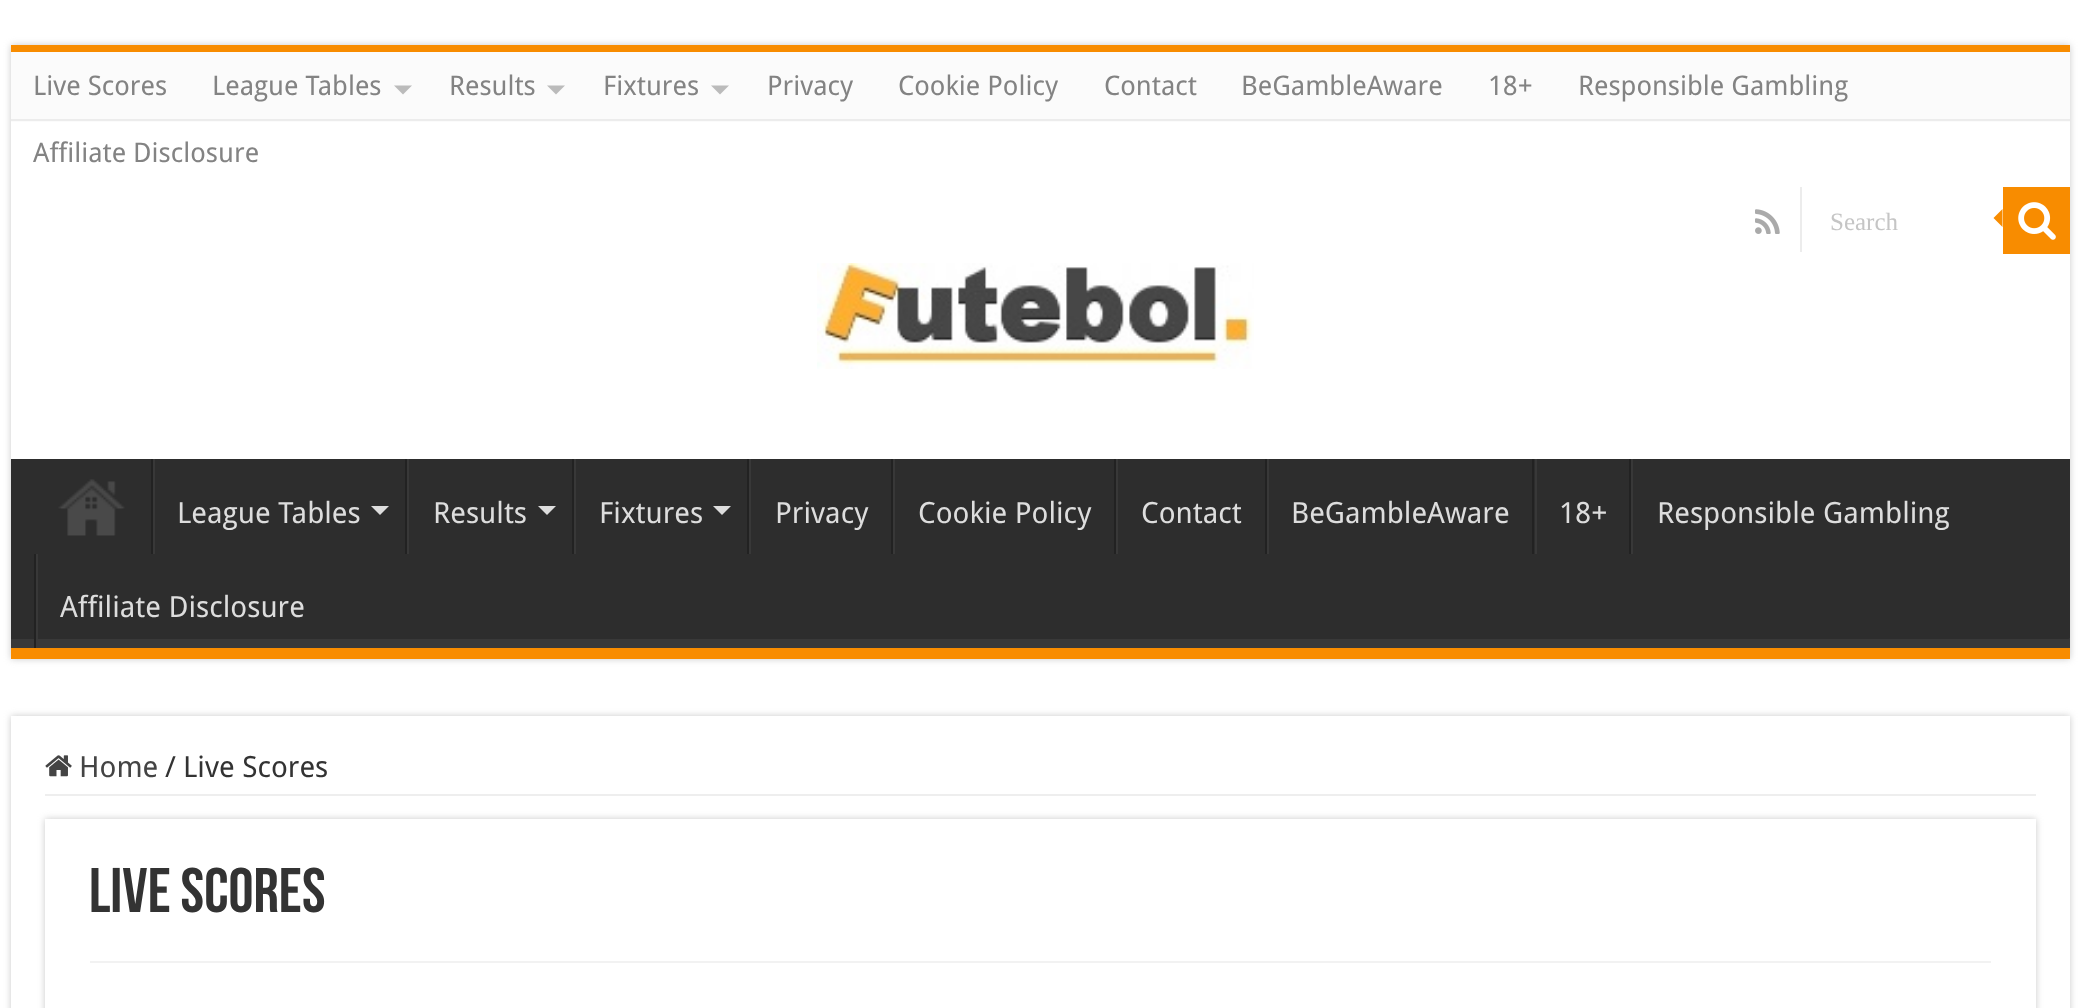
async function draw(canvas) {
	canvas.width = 2080;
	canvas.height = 1008;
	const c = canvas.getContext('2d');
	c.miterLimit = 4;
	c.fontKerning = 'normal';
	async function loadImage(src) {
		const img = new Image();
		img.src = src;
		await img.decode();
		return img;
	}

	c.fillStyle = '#fff';
	c.fillRect(0, 0, 2080, 1008);
	c.fillStyle = '#cacaca';
	c.filter = 'blur(3.5px)';
	c.beginPath();
	c.rect(11, 45, 2059, 614);
	c.fill();
	c.filter = 'none';
	for (const [x, y, w, h, color] of [
		[11, 122, 2059, 337, '#fff'],
		[11, 45, 2059, 7, '#f88c00'],
		[11, 52, 2059, 70, '#fbfbfb'],
		[11, 119, 2059, 2, '#ececec'],
	]) {
		c.fillStyle = color;
		c.fillRect(x, y, w, h);
	}
	c.font = '27px Droid Sans';
	c.fillStyle = '#838383';
	c.fillText('Live Scores', 33, 95);
	c.fillText('League Tables', 212, 95);
	c.fillStyle = '#bbb';
	c.beginPath();
	c.moveTo(394, 85.5);
	c.lineTo(412, 85.5);
	c.lineTo(403, 94.5);
	c.closePath();
	c.fill();
	c.fillStyle = '#838383';
	c.fillText('Results', 449, 95);
	c.fillStyle = '#bbb';
	c.beginPath();
	c.moveTo(547, 85.5);
	c.lineTo(565, 85.5);
	c.lineTo(556, 94.5);
	c.closePath();
	c.fill();
	c.fillStyle = '#838383';
	c.fillText('Fixtures', 603, 95);
	c.fillStyle = '#bbb';
	c.beginPath();
	c.moveTo(711, 85.5);
	c.lineTo(729, 85.5);
	c.lineTo(720, 94.5);
	c.closePath();
	c.fill();
	c.fillStyle = '#838383';
	for (const [text, x, y] of [
		['Privacy', 767, 95],
		['Cookie Policy', 898, 95],
		['Contact', 1104, 95],
		['BeGambleAware', 1241, 95],
		['18+', 1488, 95],
		['Responsible Gambling', 1578, 95],
		['Affiliate Disclosure', 33, 162],
	]) {
		c.fillText(text, x, y);
	}
	c.drawImage(await loadImage('img1.png'), 1755, 209, 25, 25);
	c.fillStyle = '#ececec';
	c.fillRect(1800, 187, 2, 65);
	c.font = '25px Liberation Serif';
	c.fillStyle = '#c5c5c5';
	c.fillText('Search', 1830, 230);
	c.fillStyle = '#f88c00';
	c.fillRect(2003, 187, 67, 67);
	c.drawImage(await loadImage('img2.png'), 2018, 202, 38, 38);
	c.beginPath();
	c.moveTo(2002.5, 209);
	c.lineTo(2002.5, 227);
	c.lineTo(1993.5, 218);
	c.closePath();
	c.fill();
	c.drawImage(await loadImage('img3.png'), 817, 263, 437, 106);
	c.fillStyle = '#2d2d2d';
	c.fillRect(11, 459, 2059, 180);
	c.save();
	c.beginPath();
	c.rect(11, 459, 2059, 189);
	c.clip();
	c.fillStyle = '#393939';
	c.beginPath();
	c.moveTo(-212, 236);
	c.lineTo(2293, 236);
	c.lineTo(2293, 871);
	c.lineTo(-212, 871);
	c.closePath();
	c.moveTo(9, 446);
	c.lineTo(2068, 446);
	c.bezierCurveTo(2069, 446, 2070, 447, 2070, 448);
	c.lineTo(2070, 637);
	c.bezierCurveTo(2070, 638, 2069, 639, 2068, 639);
	c.lineTo(9, 639);
	c.bezierCurveTo(8, 639, 7, 638, 7, 637);
	c.lineTo(7, 448);
	c.bezierCurveTo(7, 447, 8, 446, 9, 446);
	c.closePath();
	c.fill('evenodd');
	c.restore();
	c.fillStyle = '#f88c00';
	c.fillRect(11, 648, 2059, 11);
	c.drawImage(await loadImage('img4.png'), 58, 479, 67, 57);
	c.fillStyle = '#222';
	c.fillRect(151, 459, 2, 95);
	c.fillStyle = '#383838';
	c.fillRect(153, 459, 2, 95);
	c.font = '29.25px Droid Sans';
	c.fillStyle = '#ddd';
	c.fillText('League Tables', 177, 523);
	c.beginPath();
	c.moveTo(371, 506);
	c.lineTo(389, 506);
	c.lineTo(380, 515);
	c.closePath();
	c.fill();
	c.fillStyle = '#222';
	c.fillRect(405, 459, 2, 95);
	c.fillStyle = '#383838';
	c.fillRect(407, 459, 2, 95);
	c.fillStyle = '#ddd';
	c.fillText('Results', 433, 523);
	c.beginPath();
	c.moveTo(538, 506);
	c.lineTo(556, 506);
	c.lineTo(547, 515);
	c.closePath();
	c.fill();
	c.fillStyle = '#222';
	c.fillRect(572, 459, 2, 95);
	c.fillStyle = '#383838';
	c.fillRect(574, 459, 2, 95);
	c.fillStyle = '#ddd';
	c.fillText('Fixtures', 599, 523);
	c.beginPath();
	c.moveTo(713, 506);
	c.lineTo(731, 506);
	c.lineTo(722, 515);
	c.closePath();
	c.fill();
	c.fillStyle = '#222';
	c.fillRect(747, 459, 2, 95);
	c.fillStyle = '#383838';
	c.fillRect(749, 459, 2, 95);
	c.fillStyle = '#ddd';
	c.fillText('Privacy', 775, 523);
	c.fillStyle = '#222';
	c.fillRect(891, 459, 2, 95);
	c.fillStyle = '#383838';
	c.fillRect(893, 459, 2, 95);
	c.fillStyle = '#ddd';
	c.fillText('Cookie Policy', 918, 523);
	c.fillStyle = '#222';
	c.fillRect(1114, 459, 2, 95);
	c.fillStyle = '#383838';
	c.fillRect(1116, 459, 2, 95);
	c.fillStyle = '#ddd';
	c.fillText('Contact', 1141, 523);
	c.fillStyle = '#222';
	c.fillRect(1265, 459, 2, 95);
	c.fillStyle = '#383838';
	c.fillRect(1267, 459, 2, 95);
	c.fillStyle = '#ddd';
	c.fillText('BeGambleAware', 1291, 523);
	c.fillStyle = '#222';
	c.fillRect(1532, 459, 2, 95);
	c.fillStyle = '#383838';
	c.fillRect(1535, 459, 2, 95);
	c.fillStyle = '#ddd';
	c.fillText('18+', 1559, 523);
	c.fillStyle = '#222';
	c.fillRect(1629, 459, 2, 95);
	c.fillStyle = '#383838';
	c.fillRect(1631, 459, 2, 95);
	c.fillStyle = '#ddd';
	c.fillText('Responsible Gambling', 1657, 523);
	c.fillStyle = '#222';
	c.fillRect(34, 554, 2, 94);
	c.fillStyle = '#383838';
	c.fillRect(36, 554, 2, 85);
	c.fillStyle = '#ddd';
	c.fillText('Affiliate Disclosure', 60, 617);
	c.fillStyle = '#cacaca';
	c.filter = 'blur(3.5px)';
	c.beginPath();
	c.rect(11, 716, 2059, 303);
	c.fill();
	c.filter = 'none';
	c.fillStyle = '#fff';
	c.fillRect(11, 716, 2059, 292);
	c.fillStyle = '#eee';
	c.fillRect(45, 794, 1991, 2);
	c.drawImage(await loadImage('img5.png'), 45, 755, 27, 22);
	c.fillStyle = '#444';
	c.fillText('Home', 79, 777);
	c.fillStyle = '#333';
	c.fillText('/', 165, 777);
	c.fillText('Live Scores', 183, 777);
	c.save();
	c.beginPath();
	c.moveTo(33, 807);
	c.lineTo(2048, 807);
	c.lineTo(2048, 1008);
	c.lineTo(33, 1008);
	c.closePath();
	c.moveTo(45, 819);
	c.lineTo(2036, 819);
	c.lineTo(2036, 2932);
	c.lineTo(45, 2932);
	c.closePath();
	c.clip('evenodd');
	c.fillStyle = '#cacaca';
	c.filter = 'blur(3.5px)';
	c.beginPath();
	c.rect(45, 819, 1991, 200);
	c.fill();
	c.filter = 'none';
	c.restore();
	c.font = 'bold 63px Bebas Neue';
	c.fillText('Live Scores', 89, 912);
	c.fillStyle = '#f2f2f2';
	c.fillRect(90, 961, 1901, 2);
}

draw(document.querySelector('canvas'));
